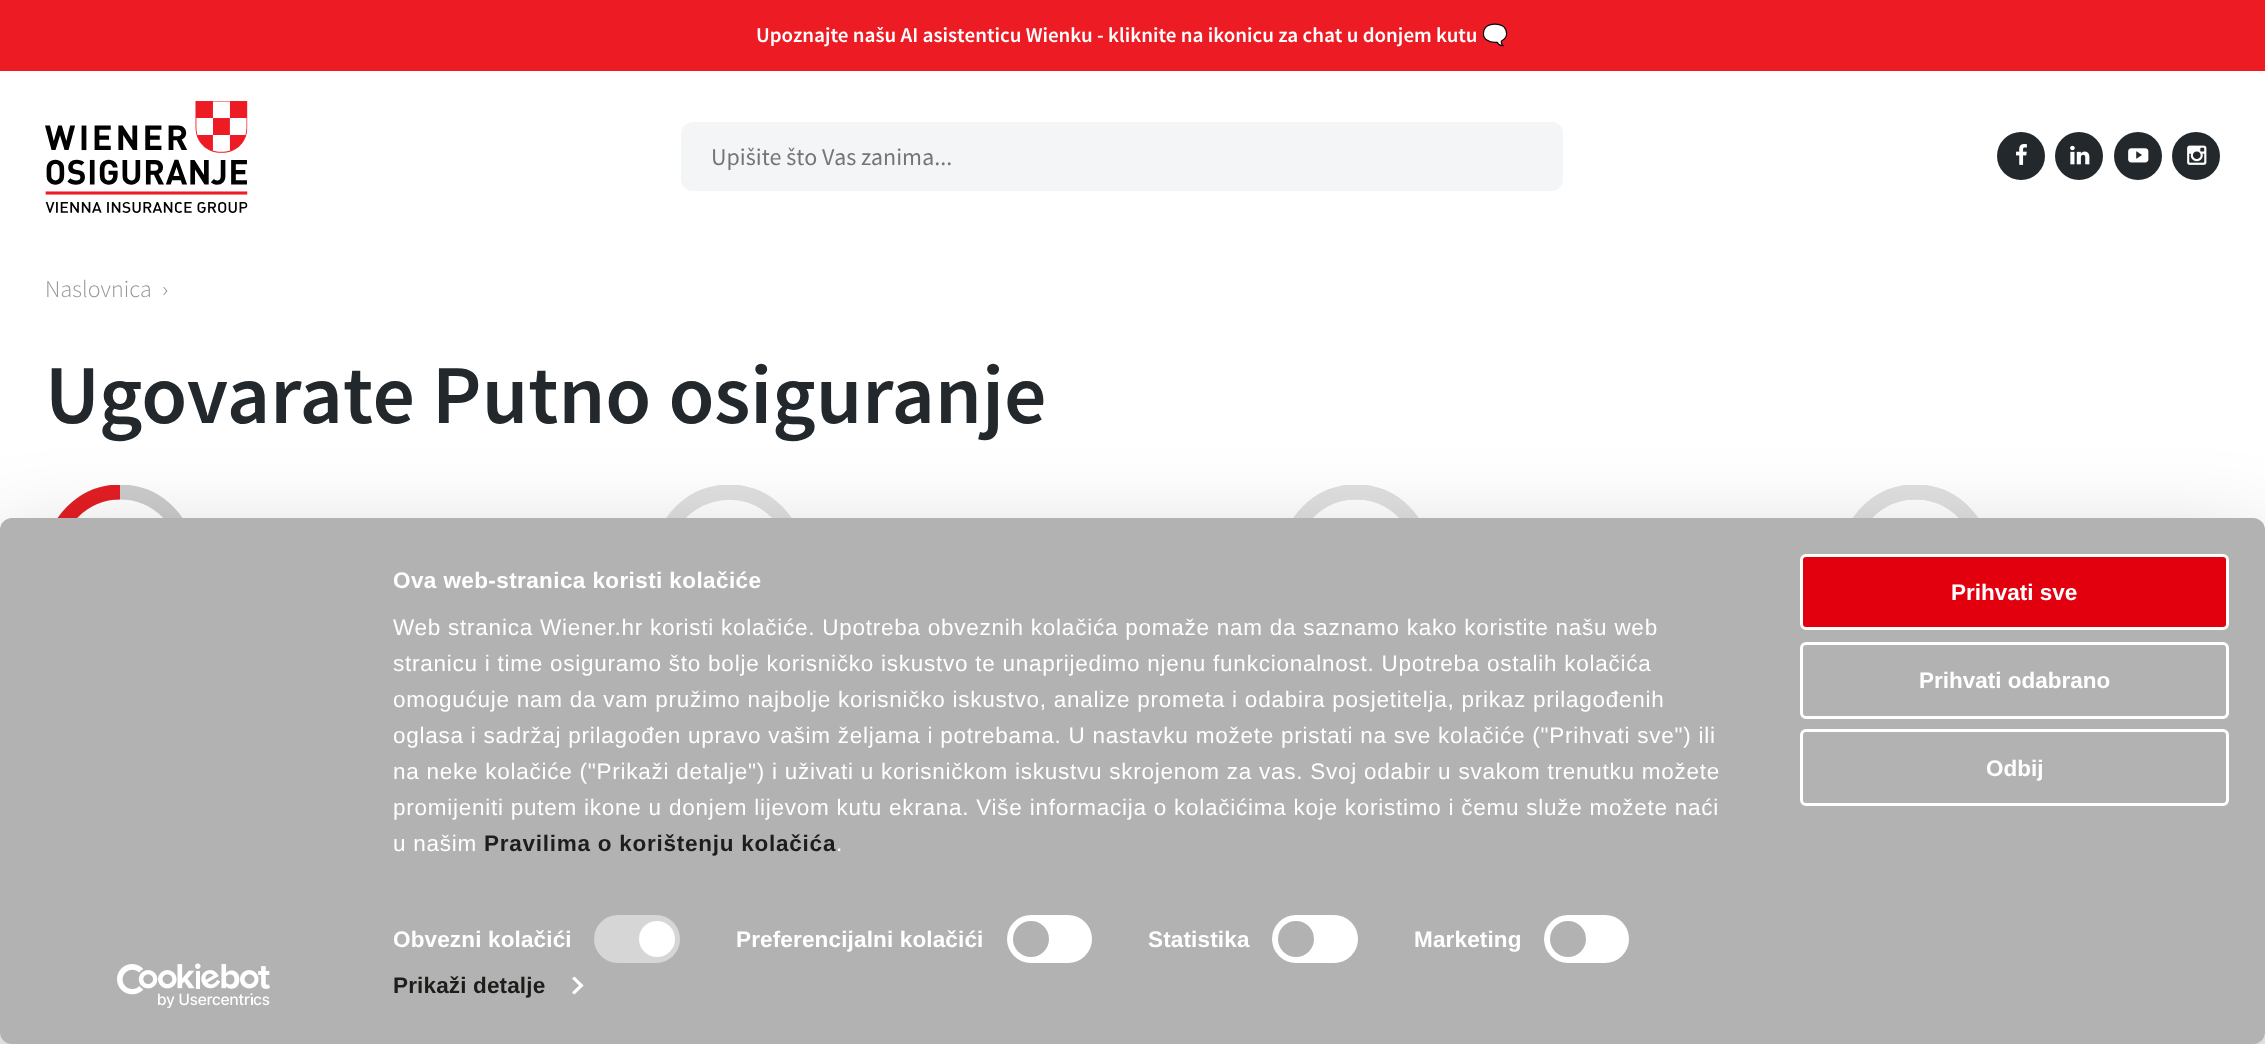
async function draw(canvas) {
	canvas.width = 2265;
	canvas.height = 1044;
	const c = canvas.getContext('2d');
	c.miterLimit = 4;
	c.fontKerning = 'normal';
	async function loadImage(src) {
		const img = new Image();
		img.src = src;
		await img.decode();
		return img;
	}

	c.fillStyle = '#fff';
	c.fillRect(0, 0, 2265, 1044);
	c.fillStyle = '#ed1c24';
	c.fillRect(0, 0, 2265, 71);
	c.font = '600 21px Source Sans Pro';
	c.fillStyle = '#fff';
	c.fillText('Upoznajte našu AI asistenticu Wienku - kliknite na ikonicu za chat u donjem kutu', 756, 42);
	c.font = 'bold 21px Noto Color Emoji';
	c.fillText('🗨️', 1482, 42);
	c.drawImage(await loadImage('img1.png'), 45, 101, 203, 112);
	c.fillStyle = '#f3f5f6';
	c.beginPath();
	c.roundRect(681, 122, 882, 69, 12);
	c.fill();
	c.font = '24px Source Sans Pro';
	c.fillStyle = '#757575';
	c.fillText('Upišite što Vas zanima...', 711, 165);
	c.fillStyle = '#f3f5f6';
	c.beginPath();
	c.roundRect(1479, 122, 84, 69, 12);
	c.fill();
	c.fillStyle = '#22282b';
	c.beginPath();
	c.arc(2021, 156, 24, 0, 2 * Math.PI);
	c.fill();
	c.drawImage(await loadImage('img2.png'), 2016, 144, 11, 21);
	c.beginPath();
	c.arc(2079, 156, 24, 0, 2 * Math.PI);
	c.fill();
	c.drawImage(await loadImage('img3.png'), 2070, 145, 20, 20);
	c.beginPath();
	c.arc(2138, 156, 24, 0, 2 * Math.PI);
	c.fill();
	c.drawImage(await loadImage('img4.png'), 2128, 148, 21, 15);
	c.beginPath();
	c.arc(2196, 156, 24, 0, 2 * Math.PI);
	c.fill();
	c.drawImage(await loadImage('img5.png'), 2187, 145, 20, 20);
	c.font = '300 24px Source Sans Pro';
	c.fillStyle = '#939598';
	c.fillText('Naslovnica', 45, 297);
	c.fillText('›', 162, 297);
	c.font = '600 83.75px Source Sans Pro';
	c.fillStyle = '#22282b';
	c.fillText('Ugovarate Putno osiguranje', 45, 423);
	c.save();
	c.beginPath();
	c.rect(45, 485, 150, 150);
	c.clip();
	c.beginPath();
	c.arc(120, 559.5, 67.5, 0, 2 * Math.PI);
	c.strokeStyle = '#ccc';
	c.lineWidth = 15;
	c.stroke();
	c.beginPath();
	c.moveTo(52.5, 559.5);
	c.bezierCurveTo(52.5, 522.5, 83.5, 492, 120, 492);
	c.strokeStyle = '#e31e24';
	c.stroke();
	c.restore();
	c.save();
	c.beginPath();
	c.rect(654, 485, 150, 150);
	c.clip();
	c.beginPath();
	c.arc(729, 559.5, 67.5, 0, 2 * Math.PI);
	c.strokeStyle = '#e0e0e0';
	c.lineWidth = 15;
	c.stroke();
	c.beginPath();
	c.moveTo(661.5, 559.5);
	c.bezierCurveTo(661.5, 493.5, 748, 467, 785, 522);
	c.bezierCurveTo(792.5, 533, 796.5, 546, 796.5, 560);
	c.stroke();
	c.restore();
	c.save();
	c.beginPath();
	c.rect(1281, 485, 150, 150);
	c.clip();
	c.beginPath();
	c.arc(1356, 559.5, 67.5, 0, 2 * Math.PI);
	c.strokeStyle = '#e0e0e0';
	c.lineWidth = 15;
	c.stroke();
	c.beginPath();
	c.moveTo(1288.5, 559.5);
	c.bezierCurveTo(1288.5, 522, 1318.5, 492, 1356, 492);
	c.bezierCurveTo(1393.5, 492, 1423.5, 522, 1423.5, 559.5);
	c.bezierCurveTo(1423.5, 597, 1393.5, 627, 1356, 627);
	c.lineTo(1355.5, 627);
	c.stroke();
	c.restore();
	c.save();
	c.beginPath();
	c.rect(1841, 485, 150, 150);
	c.clip();
	c.beginPath();
	c.arc(1915.5, 559.5, 67.5, 0, 2 * Math.PI);
	c.strokeStyle = '#e0e0e0';
	c.lineWidth = 15;
	c.stroke();
	c.beginPath();
	c.moveTo(1848, 559.5);
	c.bezierCurveTo(1848, 522, 1878, 492, 1915.5, 492);
	c.bezierCurveTo(1953, 492, 1983, 522, 1983, 559.5);
	c.bezierCurveTo(1983, 597, 1953, 627, 1915.5, 627);
	c.bezierCurveTo(1878, 627, 1848, 597, 1848, 559.5);
	c.stroke();
	c.restore();
	c.fillStyle = '#0000004d';
	c.filter = 'blur(52.5px)';
	c.beginPath();
	c.roundRect(0, 563, 2265, 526, 12);
	c.fill();
	c.filter = 'none';
	c.fillStyle = '#b2b2b2';
	c.beginPath();
	c.roundRect(0, 518, 2265, 526, 12);
	c.fill();
	c.letterSpacing = '0.4px';
	c.font = 'bold 22.5px Liberation Sans';
	c.fillStyle = '#fff';
	c.fillText('Ova web-stranica koristi kolačiće', 393, 588);
	c.letterSpacing = '0.75px';
	c.font = '22.5px Liberation Sans';
	for (const [text, x, y] of [
		['Web stranica Wiener.hr koristi kolačiće. Upotreba obveznih kolačića pomaže nam da saznamo kako koristite našu web', 393, 635],
		['stranicu i time osiguramo što bolje korisničko iskustvo te unaprijedimo njenu funkcionalnost. Upotreba ostalih kolačića', 393, 671],
		['omogućuje nam da vam pružimo najbolje korisničko iskustvo, analize prometa i odabira posjetitelja, prikaz prilagođenih', 393, 707],
		['oglasa i sadržaj prilagođen upravo vašim željama i potrebama. U nastavku možete pristati na sve kolačiće ("Prihvati sve") ili', 393, 743],
		['na neke kolačiće ("Prikaži detalje") i uživati u korisničkom iskustvu skrojenom za vas. Svoj odabir u svakom trenutku možete', 393, 779],
		['promijeniti putem ikone u donjem lijevom kutu ekrana. Više informacija o kolačićima koje koristimo i čemu služe možete naći', 393, 815],
		['u našim', 393, 851],
	]) {
		c.fillText(text, x, y);
	}
	c.font = 'bold 22.5px Liberation Sans';
	c.fillStyle = '#1d1d1b';
	c.fillText('Pravilima o korištenju kolačića', 484, 851);
	c.font = '22.5px Liberation Sans';
	c.fillStyle = '#fff';
	c.fillText('.', 836, 851);
	c.letterSpacing = '0.15px';
	c.font = 'bold 22.5px Liberation Sans';
	c.fillText('Obvezni kolačići', 393, 947);
	c.fillStyle = '#d6d6d6';
	c.beginPath();
	c.roundRect(594, 915, 86, 48, 24);
	c.fill();
	c.fillStyle = '#fff';
	c.beginPath();
	c.arc(657, 939, 18, 0, 2 * Math.PI);
	c.fill();
	c.fillText('Preferencijalni kolačići', 736, 947);
	c.beginPath();
	c.roundRect(1007, 915, 85, 48, 24);
	c.fill();
	c.fillStyle = '#b2b2b2';
	c.beginPath();
	c.arc(1031, 939, 18, 0, 2 * Math.PI);
	c.fill();
	c.fillStyle = '#fff';
	c.fillText('Statistika', 1148, 947);
	c.beginPath();
	c.roundRect(1272, 915, 86, 48, 24);
	c.fill();
	c.fillStyle = '#b2b2b2';
	c.beginPath();
	c.arc(1296, 939, 18, 0, 2 * Math.PI);
	c.fill();
	c.fillStyle = '#fff';
	c.fillText('Marketing', 1414, 947);
	c.beginPath();
	c.roundRect(1544, 915, 85, 48, 24);
	c.fill();
	c.fillStyle = '#b2b2b2';
	c.beginPath();
	c.arc(1568, 939, 18, 0, 2 * Math.PI);
	c.fill();
	c.fillStyle = '#1d1d1b';
	c.fillText('Prikaži detalje', 393, 993);
	c.fillStyle = '#fff';
	c.beginPath();
	c.moveTo(574.5, 976.5);
	c.lineTo(583.5, 985.5);
	c.lineTo(581, 987.5);
	c.lineTo(572, 978.5);
	c.closePath();
	c.fill();
	c.beginPath();
	c.moveTo(581, 983.5);
	c.lineTo(583.5, 985.5);
	c.lineTo(574.5, 994.5);
	c.lineTo(572, 992.5);
	c.closePath();
	c.fill();
	c.fillStyle = '#e2000f';
	c.beginPath();
	c.roundRect(1801.5, 555.5, 426, 73, 4.5);
	c.fill();
	c.strokeStyle = '#fff';
	c.lineWidth = 3;
	c.stroke();
	c.letterSpacing = '0px';
	c.fillStyle = '#fff';
	c.fillText('Prihvati sve', 1951, 600);
	c.beginPath();
	c.roundRect(1801.5, 643.5, 426, 74, 4.5);
	c.stroke();
	c.fillText('Prihvati odabrano', 1919, 688);
	c.beginPath();
	c.roundRect(1801.5, 730.5, 426, 74, 4.5);
	c.stroke();
	c.fillText('Odbij', 1986, 776);
	c.drawImage(await loadImage('img6.png'), 117, 963, 153, 45);
}

draw(document.querySelector('canvas'));
